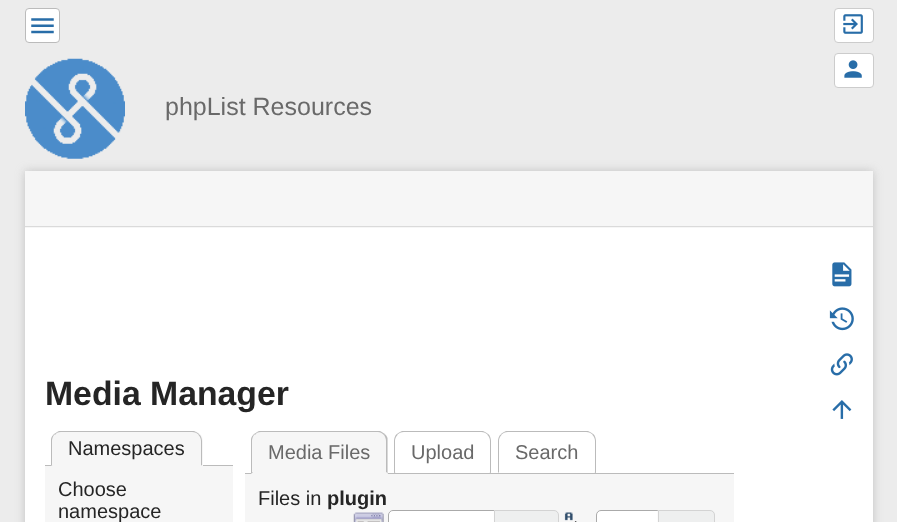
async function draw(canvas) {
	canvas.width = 897;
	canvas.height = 522;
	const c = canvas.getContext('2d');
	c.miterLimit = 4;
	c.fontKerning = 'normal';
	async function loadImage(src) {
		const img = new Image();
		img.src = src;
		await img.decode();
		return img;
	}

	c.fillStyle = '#ececec';
	c.fillRect(0, 0, 897, 522);
	c.fillStyle = '#fff';
	c.beginPath();
	c.roundRect(834.5, 8.5, 39, 34, 3.5);
	c.fill();
	c.strokeStyle = '#ccc';
	c.stroke();
	c.drawImage(await loadImage('img1.png'), 843, 14, 20, 20);
	c.beginPath();
	c.roundRect(834.5, 53.5, 39, 34, 3.5);
	c.fill();
	c.stroke();
	c.drawImage(await loadImage('img2.png'), 844, 60, 18, 18);
	c.beginPath();
	c.roundRect(25.5, 8.5, 34, 34, 3.5);
	c.fill();
	c.strokeStyle = '#bbb';
	c.stroke();
	c.drawImage(await loadImage('img3.png'), 31, 18, 23, 16);
	c.drawImage(await loadImage('img4.png'), 25, 58, 100, 101);
	c.font = '25px Liberation Sans';
	c.fillStyle = '#696969';
	c.fillText('phpList Resources', 165, 115);
	c.fillStyle = '#99999980';
	c.filter = 'blur(5px)';
	c.beginPath();
	c.rect(25, 171, 848, 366);
	c.fill();
	c.filter = 'none';
	for (const [x, y, w, h, color] of [
		[25, 171, 848, 57, '#f6f6f6'],
		[25, 226, 848, 1, '#dadada'],
		[25, 228, 848, 294, '#fff'],
	]) {
		c.fillStyle = color;
		c.fillRect(x, y, w, h);
	}
	c.drawImage(await loadImage('img5.png'), 832, 262, 20, 25);
	c.drawImage(await loadImage('img6.png'), 829, 307, 25, 24);
	c.drawImage(await loadImage('img7.png'), 830, 353, 23, 23);
	c.drawImage(await loadImage('img8.png'), 832, 400, 20, 19);
	c.font = 'bold 33.75px Liberation Sans';
	c.fillStyle = '#252525';
	c.fillText('Media Manager', 45, 405);
	c.fillStyle = '#bbb';
	c.fillRect(45, 465, 188, 1);
	c.fillStyle = '#f6f6f6';
	c.beginPath();
	c.roundRect(51, 431, 152, 35, [10, 10, 0, 0]);
	c.fill();
	c.fillStyle = '#bbb';
	c.beginPath();
	c.moveTo(61, 432);
	c.bezierCurveTo(58, 432, 56, 433, 55, 435);
	c.lineTo(54, 434);
	c.bezierCurveTo(56, 433, 57, 432, 59, 431);
	c.lineTo(194, 431);
	c.bezierCurveTo(196, 432, 198, 433, 199, 434);
	c.lineTo(199, 435);
	c.bezierCurveTo(197, 433, 195, 432, 192, 432);
	c.closePath();
	c.fill();
	c.beginPath();
	c.moveTo(199.5, 434.5);
	c.bezierCurveTo(201, 436, 202, 438.5, 202, 441);
	c.lineTo(202, 466);
	c.lineTo(201, 465);
	c.lineTo(201, 441);
	c.bezierCurveTo(201, 438.5, 200, 436.5, 198.5, 435);
	c.closePath();
	c.fill();
	c.fillStyle = '#f6f6f6';
	c.beginPath();
	c.moveTo(202, 466);
	c.lineTo(52, 466);
	c.lineTo(52, 465);
	c.lineTo(201, 465);
	c.closePath();
	c.fill();
	c.fillStyle = '#bbb';
	c.beginPath();
	c.moveTo(51, 439);
	c.bezierCurveTo(51.5, 437, 52.5, 435.5, 54, 434);
	c.lineTo(54.5, 434.5);
	c.bezierCurveTo(53, 436, 52, 438.5, 52, 441);
	c.lineTo(52, 465);
	c.lineTo(52.5, 465);
	c.lineTo(51, 466);
	c.closePath();
	c.fill();
	c.font = '20px Liberation Sans';
	c.fillStyle = '#252525';
	c.fillText('Namespaces', 68, 455);
	c.fillStyle = '#f6f6f6';
	c.fillRect(45, 466, 188, 56);
	c.fillStyle = '#252525';
	c.fillText('Choose', 58, 496);
	c.fillText('namespace', 58, 518);
	c.fillStyle = '#bbb';
	c.beginPath();
	c.moveTo(404, 432);
	c.bezierCurveTo(401, 432, 399, 433, 397, 435);
	c.lineTo(397, 434);
	c.bezierCurveTo(398, 433, 400, 432, 402, 431);
	c.lineTo(483, 431);
	c.bezierCurveTo(485, 432, 487, 433, 488, 434);
	c.lineTo(488, 435);
	c.bezierCurveTo(486, 433, 484, 432, 481, 432);
	c.closePath();
	c.fill();
	c.beginPath();
	c.moveTo(488.5, 434);
	c.bezierCurveTo(490, 436, 491, 438.5, 491, 441);
	c.lineTo(491, 473.5);
	c.lineTo(489.5, 472);
	c.lineTo(490, 472);
	c.lineTo(490, 441);
	c.bezierCurveTo(490, 438.5, 489, 436.5, 487.5, 435);
	c.closePath();
	c.fill();
	c.beginPath();
	c.moveTo(394, 473.5);
	c.lineTo(394, 441);
	c.bezierCurveTo(394, 438.5, 395, 436, 396.5, 434);
	c.lineTo(397.5, 435);
	c.bezierCurveTo(396, 436.5, 395, 438.5, 395, 441);
	c.lineTo(395, 472);
	c.lineTo(395.5, 472);
	c.closePath();
	c.fill();
	c.beginPath();
	c.moveTo(508, 432);
	c.bezierCurveTo(505, 432, 503, 433, 501, 435);
	c.lineTo(501, 434);
	c.bezierCurveTo(502, 433, 504, 432, 506, 431);
	c.lineTo(588, 431);
	c.bezierCurveTo(590, 432, 592, 433, 593, 434);
	c.lineTo(593, 435);
	c.bezierCurveTo(591, 433, 589, 432, 586, 432);
	c.closePath();
	c.fill();
	c.beginPath();
	c.moveTo(593.5, 434);
	c.bezierCurveTo(595, 436, 596, 438.5, 596, 441);
	c.lineTo(596, 473.5);
	c.lineTo(594.5, 472);
	c.lineTo(595, 472);
	c.lineTo(595, 441);
	c.bezierCurveTo(595, 438.5, 594, 436.5, 592.5, 435);
	c.closePath();
	c.fill();
	c.fillRect(245, 473, 489, 1);
	c.fillStyle = '#f6f6f6';
	c.beginPath();
	c.roundRect(251, 431, 137, 43, [10, 10, 0, 0]);
	c.fill();
	c.fillStyle = '#bbb';
	c.beginPath();
	c.moveTo(261, 432);
	c.bezierCurveTo(258, 432, 256, 433, 255, 435);
	c.lineTo(254, 434);
	c.bezierCurveTo(256, 433, 257, 432, 259, 431);
	c.lineTo(380, 431);
	c.bezierCurveTo(382, 432, 383, 433, 385, 434);
	c.lineTo(384, 435);
	c.bezierCurveTo(382, 433, 380, 432, 378, 432);
	c.closePath();
	c.fill();
	c.beginPath();
	c.moveTo(384.5, 434);
	c.bezierCurveTo(386, 435, 387, 436.5, 387.5, 438);
	c.lineTo(387.5, 474);
	c.lineTo(386, 472);
	c.lineTo(386, 441);
	c.bezierCurveTo(386, 438.5, 385, 436.5, 384, 435);
	c.closePath();
	c.fill();
	c.fillStyle = '#f6f6f6';
	c.beginPath();
	c.moveTo(388, 474);
	c.lineTo(386, 472);
	c.lineTo(253, 472);
	c.lineTo(251, 474);
	c.closePath();
	c.fill();
	c.fillStyle = '#bbb';
	c.beginPath();
	c.moveTo(251, 474);
	c.lineTo(251, 439);
	c.bezierCurveTo(251.5, 437, 252.5, 435.5, 254, 434);
	c.lineTo(254.5, 434.5);
	c.bezierCurveTo(253, 436, 252, 438.5, 252, 441);
	c.lineTo(252, 472);
	c.lineTo(253, 472);
	c.closePath();
	c.fill();
	c.fillStyle = '#696969';
	c.fillText('Media Files', 268, 459);
	c.fillText('Upload', 411, 459);
	c.fillStyle = '#bbb';
	c.beginPath();
	c.moveTo(498, 473);
	c.lineTo(498, 441);
	c.bezierCurveTo(498, 438.5, 499, 436, 500.5, 434.5);
	c.lineTo(501.5, 435);
	c.bezierCurveTo(500, 436.5, 499, 438.5, 499, 441);
	c.lineTo(499, 472);
	c.closePath();
	c.fill();
	c.fillStyle = '#696969';
	c.fillText('Search', 515, 459);
	c.fillStyle = '#f6f6f6';
	c.fillRect(245, 474, 489, 48);
	c.fillStyle = '#252525';
	c.fillText('Files in', 258, 505);
	c.font = 'bold 20px Liberation Sans';
	c.fillText('plugin', 327, 505);
	c.drawImage(await loadImage('img9.png'), 353, 512, 31, 10);
	c.fillStyle = '#fff';
	c.beginPath();
	c.moveTo(393, 510);
	c.lineTo(501, 510);
	c.lineTo(501, 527);
	c.lineTo(393, 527);
	c.bezierCurveTo(390, 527, 388, 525, 388, 522);
	c.lineTo(388, 515);
	c.bezierCurveTo(388, 512, 390, 510, 393, 510);
	c.closePath();
	c.fill();
	c.fillStyle = '#fefefe';
	c.fillRect(388, 512, 1, 1);
	c.beginPath();
	c.moveTo(393, 510.5);
	c.lineTo(500.5, 510.5);
	c.lineTo(500.5, 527.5);
	c.lineTo(393, 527.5);
	c.bezierCurveTo(390.5, 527.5, 388.5, 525.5, 388.5, 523);
	c.lineTo(388.5, 515);
	c.bezierCurveTo(388.5, 512.5, 390.5, 510.5, 393, 510.5);
	c.closePath();
	c.strokeStyle = '#aaa';
	c.stroke();
	c.drawImage(await loadImage('img10.png'), 493, 510, 66, 12);
	c.beginPath();
	c.moveTo(494.5, 510.5);
	c.lineTo(554, 510.5);
	c.bezierCurveTo(556.5, 510.5, 558.5, 512.5, 558.5, 515);
	c.lineTo(558.5, 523);
	c.bezierCurveTo(558.5, 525.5, 556.5, 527.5, 554, 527.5);
	c.lineTo(494.5, 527.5);
	c.closePath();
	c.strokeStyle = '#d3d3d3';
	c.stroke();
	c.drawImage(await loadImage('img11.png'), 564, 512, 13, 10);
	c.fillStyle = '#fff';
	c.beginPath();
	c.moveTo(601, 510.5);
	c.lineTo(663.5, 510.5);
	c.lineTo(663.5, 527.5);
	c.lineTo(601, 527.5);
	c.bezierCurveTo(598.5, 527.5, 596.5, 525.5, 596.5, 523);
	c.lineTo(596.5, 515);
	c.bezierCurveTo(596.5, 512.5, 598.5, 510.5, 601, 510.5);
	c.closePath();
	c.fill();
	c.strokeStyle = '#aaa';
	c.stroke();
	c.drawImage(await loadImage('img12.png'), 657, 510, 58, 12);
	c.beginPath();
	c.moveTo(658.5, 510.5);
	c.lineTo(710, 510.5);
	c.bezierCurveTo(712.5, 510.5, 714.5, 512.5, 714.5, 515);
	c.lineTo(714.5, 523);
	c.bezierCurveTo(714.5, 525.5, 712.5, 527.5, 710, 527.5);
	c.lineTo(658.5, 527.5);
	c.closePath();
	c.strokeStyle = '#d3d3d3';
	c.stroke();
}

draw(document.querySelector('canvas'));
